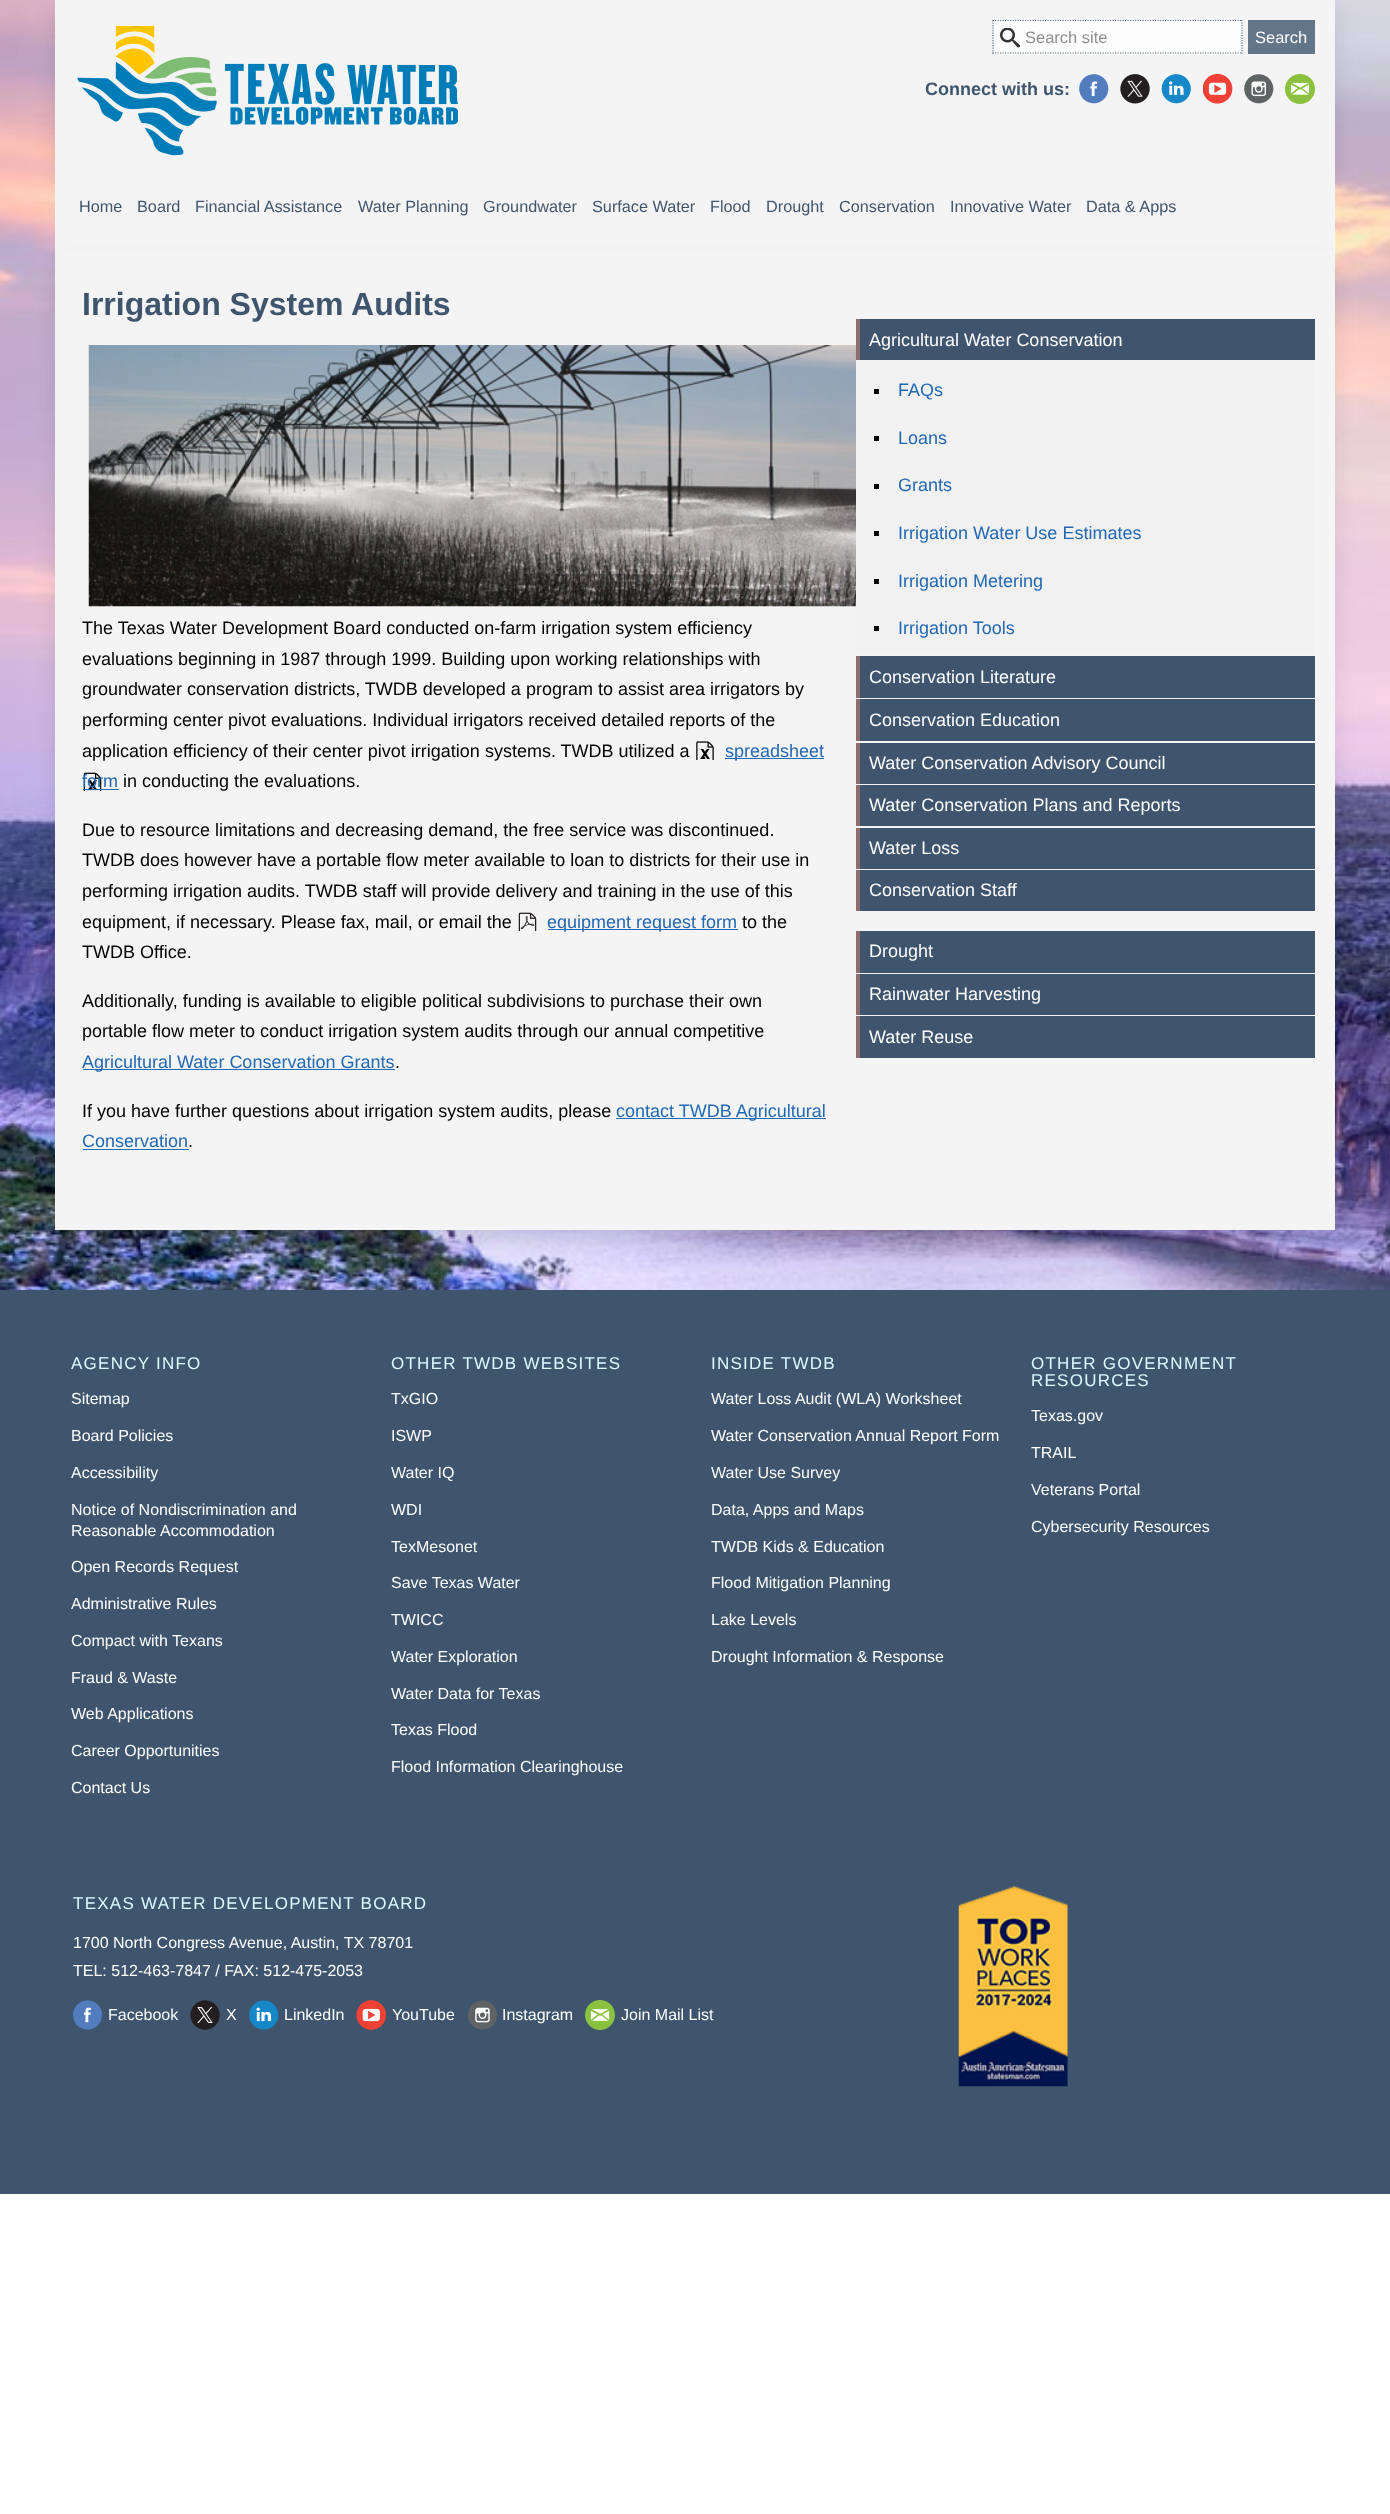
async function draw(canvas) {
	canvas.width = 1390;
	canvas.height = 2514;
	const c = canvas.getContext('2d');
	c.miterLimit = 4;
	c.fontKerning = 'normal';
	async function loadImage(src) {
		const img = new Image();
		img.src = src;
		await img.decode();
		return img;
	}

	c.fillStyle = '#fff';
	c.fillRect(0, 0, 1390, 2514);
	c.drawImage(await loadImage('img1.png'), 0, 0, 1390, 1290);
	c.fillStyle = '#0000001a';
	c.filter = 'blur(9.5px)';
	c.beginPath();
	c.rect(55, 13, 1280, 162);
	c.fill();
	c.filter = 'none';
	c.fillStyle = '#f4f4f4';
	c.fillRect(55, 0, 1280, 250);
	c.drawImage(await loadImage('img2.png'), 77, 25, 381, 131);
	c.fillStyle = '#fdfdfd';
	c.fillRect(993, 20, 250, 34);
	c.drawImage(await loadImage('img3.png'), 1000, 28, 20, 20);
	c.beginPath();
	c.moveTo(992.5, 20.5);
	c.lineTo(1242.5, 20.5);
	c.strokeStyle = '#637588';
	c.lineWidth = 1.2;
	c.setLineDash([1.25, 1.25]);
	c.stroke();
	c.beginPath();
	c.moveTo(1242, 20);
	c.lineTo(1242, 54);
	c.stroke();
	c.beginPath();
	c.moveTo(992.5, 53);
	c.lineTo(1242.5, 53);
	c.stroke();
	c.beginPath();
	c.moveTo(993, 20);
	c.lineTo(993, 54);
	c.stroke();
	c.font = '16.5px Liberation Sans';
	c.fillStyle = '#8e8e8e';
	c.fillText('Search site', 1025, 43);
	c.fillStyle = '#637588';
	c.fillRect(1248, 20, 67, 34);
	c.fillStyle = '#fdfdfd';
	c.fillText('Search', 1255, 43);
	c.font = 'bold 18px Liberation Sans';
	c.fillStyle = '#3f556d';
	c.fillText('Connect with us:', 925, 95);
	c.drawImage(await loadImage('img4.png'), 1079, 74, 30, 30);
	c.drawImage(await loadImage('img5.png'), 1120, 74, 30, 30);
	c.drawImage(await loadImage('img6.png'), 1161, 74, 30, 30);
	c.drawImage(await loadImage('img7.png'), 1203, 74, 30, 30);
	c.drawImage(await loadImage('img8.png'), 1244, 74, 30, 30);
	c.drawImage(await loadImage('img9.png'), 1285, 74, 30, 30);
	c.font = '16.25px Liberation Sans';
	for (const [text, x, y] of [
		['Home', 79, 212],
		['Board', 137, 212],
		['Financial Assistance', 195, 212],
		['Water Planning', 358, 212],
		['Groundwater', 483, 212],
		['Surface Water', 592, 212],
		['Flood', 710, 212],
		['Drought', 766, 212],
		['Conservation', 839, 212],
		['Innovative Water', 950, 212],
		['Data & Apps', 1086, 212],
	]) {
		c.fillText(text, x, y);
	}
	c.fillStyle = '#0000001a';
	c.filter = 'blur(9.5px)';
	c.beginPath();
	c.rect(55, 263, 1280, 980);
	c.fill();
	c.filter = 'none';
	c.fillStyle = '#f4f4f4';
	c.fillRect(55, 250, 1280, 980);
	c.font = 'bold 32px Liberation Sans';
	c.fillStyle = '#3f556d';
	c.fillText('Irrigation System Audits', 82, 315);
	c.drawImage(await loadImage('img10.png'), 88, 345, 768, 262);
	c.font = '18px Liberation Sans';
	c.fillStyle = '#000';
	for (const [text, x, y] of [
		['The Texas Water Development Board conducted on-farm irrigation system efficiency', 82, 634],
		['evaluations beginning in 1987 through 1999. Building upon working relationships with', 82, 665],
		['groundwater conservation districts, TWDB developed a program to assist area irrigators by', 82, 695],
		['performing center pivot evaluations. Individual irrigators received detailed reports of the', 82, 726],
		['application efficiency of their center pivot irrigation systems. TWDB utilized a', 82, 757],
	]) {
		c.fillText(text, x, y);
	}
	c.drawImage(await loadImage('img11.png'), 83, 741, 631, 50);
	c.fillStyle = '#2268b3';
	c.fillRect(725, 758, 99, 1);
	c.fillText('spreadsheet', 725, 757);
	c.fillText('form', 82, 787);
	c.fillRect(83, 789, 36, 1);
	c.fillStyle = '#000';
	for (const [text, x, y] of [
		['in conducting the evaluations.', 123, 787],
		['Due to resource limitations and decreasing demand, the free service was discontinued.', 82, 836],
		['TWDB does however have a portable flow meter available to loan to districts for their use in', 82, 866],
		['performing irrigation audits. TWDB staff will provide delivery and training in the use of this', 82, 897],
		['equipment, if necessary. Please fax, mail, or email the', 82, 928],
	]) {
		c.fillText(text, x, y);
	}
	c.drawImage(await loadImage('img12.png'), 518, 912, 19, 19);
	c.fillStyle = '#2268b3';
	c.fillRect(548, 929, 190, 1);
	c.fillText('equipment request form', 547, 928);
	c.fillStyle = '#000';
	for (const [text, x, y] of [
		['to the', 742, 928],
		['TWDB Office.', 82, 958],
		['Additionally, funding is available to eligible political subdivisions to purchase their own', 82, 1007],
		['portable flow meter to conduct irrigation system audits through our annual competitive', 82, 1037],
	]) {
		c.fillText(text, x, y);
	}
	c.fillStyle = '#2268b3';
	c.fillRect(83, 1069, 312, 1);
	c.fillText('Agricultural Water Conservation Grants', 82, 1068);
	c.fillStyle = '#000';
	c.fillText('.', 395, 1068);
	c.fillText('If you have further questions about irrigation system audits, please', 82, 1117);
	c.fillStyle = '#2268b3';
	c.fillRect(616, 1118, 210, 1);
	c.fillText('contact TWDB Agricultural', 616, 1117);
	c.fillText('Conservation', 82, 1147);
	c.fillRect(83, 1149, 106, 1);
	c.fillStyle = '#000';
	c.fillText('.', 188, 1147);
	c.fillStyle = '#3f556d';
	c.fillRect(860, 319, 455, 41);
	c.fillStyle = '#8f6c6c';
	c.fillRect(856, 319, 4, 41);
	c.fillStyle = '#fdfdfd';
	c.fillText('Agricultural Water Conservation', 869, 346);
	c.fillStyle = '#f1f1f1';
	c.fillRect(856, 360, 459, 295);
	c.fillStyle = '#000';
	c.fillRect(874, 389, 5, 5);
	c.fillStyle = '#2268b3';
	c.fillText('FAQs', 898, 396);
	c.fillStyle = '#000';
	c.fillRect(874, 436, 5, 5);
	c.fillStyle = '#2268b3';
	c.fillText('Loans', 898, 444);
	c.fillStyle = '#000';
	c.fillRect(874, 484, 5, 5);
	c.fillStyle = '#2268b3';
	c.fillText('Grants', 898, 491);
	c.fillStyle = '#000';
	c.fillRect(874, 531, 5, 5);
	c.fillStyle = '#2268b3';
	c.fillText('Irrigation Water Use Estimates', 898, 539);
	c.fillStyle = '#000';
	c.fillRect(874, 579, 5, 5);
	c.fillStyle = '#2268b3';
	c.fillText('Irrigation Metering', 898, 587);
	c.fillStyle = '#000';
	c.fillRect(874, 626, 5, 5);
	c.fillStyle = '#2268b3';
	c.fillText('Irrigation Tools', 898, 634);
	c.fillStyle = '#3f556d';
	c.fillRect(860, 656, 455, 42);
	c.fillStyle = '#8f6c6c';
	c.fillRect(856, 656, 4, 42);
	c.fillStyle = '#fdfdfd';
	c.fillText('Conservation Literature', 869, 683);
	c.fillStyle = '#3f556d';
	c.fillRect(860, 699, 455, 42);
	c.fillStyle = '#8f6c6c';
	c.fillRect(856, 699, 4, 42);
	c.fillStyle = '#fdfdfd';
	c.fillText('Conservation Education', 869, 726);
	c.fillStyle = '#3f556d';
	c.fillRect(860, 743, 455, 41);
	c.fillStyle = '#8f6c6c';
	c.fillRect(856, 743, 4, 41);
	c.fillStyle = '#fdfdfd';
	c.fillText('Water Conservation Advisory Council', 869, 769);
	c.fillStyle = '#3f556d';
	c.fillRect(860, 785, 455, 41);
	c.fillStyle = '#8f6c6c';
	c.fillRect(856, 785, 4, 41);
	c.fillStyle = '#fdfdfd';
	c.fillText('Water Conservation Plans and Reports', 869, 811);
	c.fillStyle = '#3f556d';
	c.fillRect(860, 828, 455, 41);
	c.fillStyle = '#8f6c6c';
	c.fillRect(856, 828, 4, 41);
	c.fillStyle = '#fdfdfd';
	c.fillText('Water Loss', 869, 854);
	c.fillStyle = '#3f556d';
	c.fillRect(860, 870, 455, 41);
	c.fillStyle = '#8f6c6c';
	c.fillRect(856, 870, 4, 41);
	c.fillStyle = '#fdfdfd';
	c.fillText('Conservation Staff', 869, 896);
	c.fillStyle = '#3f556d';
	c.fillRect(860, 931, 455, 42);
	c.fillStyle = '#8f6c6c';
	c.fillRect(856, 931, 4, 42);
	c.fillStyle = '#fdfdfd';
	c.fillText('Drought', 869, 957);
	c.fillStyle = '#3f556d';
	c.fillRect(860, 974, 455, 41);
	c.fillStyle = '#8f6c6c';
	c.fillRect(856, 974, 4, 41);
	c.fillStyle = '#fdfdfd';
	c.fillText('Rainwater Harvesting', 869, 1000);
	c.fillStyle = '#3f556d';
	c.fillRect(860, 1016, 455, 42);
	c.fillStyle = '#8f6c6c';
	c.fillRect(856, 1016, 4, 42);
	c.fillStyle = '#fdfdfd';
	c.fillText('Water Reuse', 869, 1043);
	c.fillStyle = '#3f556d';
	c.fillRect(0, 1290, 1390, 904);
	c.letterSpacing = '1.25px';
	c.font = '17px Liberation Sans';
	c.fillStyle = '#dbfaff';
	c.fillText('AGENCY INFO', 71, 1369);
	c.letterSpacing = '0px';
	c.font = '16px Liberation Sans';
	c.fillStyle = '#fdfdfd';
	for (const [text, x, y] of [
		['Sitemap', 71, 1404],
		['Board Policies', 71, 1441],
		['Accessibility', 71, 1478],
		['Notice of Nondiscrimination and', 71, 1515],
		['Reasonable Accommodation', 71, 1536],
		['Open Records Request', 71, 1572],
		['Administrative Rules', 71, 1609],
		['Compact with Texans', 71, 1646],
		['Fraud & Waste', 71, 1683],
		['Web Applications', 71, 1719],
		['Career Opportunities', 71, 1756],
		['Contact Us', 71, 1793],
	]) {
		c.fillText(text, x, y);
	}
	c.letterSpacing = '1.25px';
	c.font = '17px Liberation Sans';
	c.fillStyle = '#dbfaff';
	c.fillText('OTHER TWDB WEBSITES', 391, 1369);
	c.letterSpacing = '0px';
	c.font = '16px Liberation Sans';
	c.fillStyle = '#fdfdfd';
	for (const [text, x, y] of [
		['TxGIO', 391, 1404],
		['ISWP', 391, 1441],
		['Water IQ', 391, 1478],
		['WDI', 391, 1515],
		['TexMesonet', 391, 1552],
		['Save Texas Water', 391, 1588],
		['TWICC', 391, 1625],
		['Water Exploration', 391, 1662],
		['Water Data for Texas', 391, 1699],
		['Texas Flood', 391, 1735],
		['Flood Information Clearinghouse', 391, 1772],
	]) {
		c.fillText(text, x, y);
	}
	c.letterSpacing = '1.25px';
	c.font = '17px Liberation Sans';
	c.fillStyle = '#dbfaff';
	c.fillText('INSIDE TWDB', 711, 1369);
	c.letterSpacing = '0px';
	c.font = '16px Liberation Sans';
	c.fillStyle = '#fdfdfd';
	for (const [text, x, y] of [
		['Water Loss Audit (WLA) Worksheet', 711, 1404],
		['Water Conservation Annual Report Form', 711, 1441],
		['Water Use Survey', 711, 1478],
		['Data, Apps and Maps', 711, 1515],
		['TWDB Kids & Education', 711, 1552],
		['Flood Mitigation Planning', 711, 1588],
		['Lake Levels', 711, 1625],
		['Drought Information & Response', 711, 1662],
	]) {
		c.fillText(text, x, y);
	}
	c.letterSpacing = '1.25px';
	c.font = '17px Liberation Sans';
	c.fillStyle = '#dbfaff';
	c.fillText('OTHER GOVERNMENT', 1031, 1369);
	c.fillText('RESOURCES', 1031, 1386);
	c.letterSpacing = '0px';
	c.font = '16px Liberation Sans';
	c.fillStyle = '#fdfdfd';
	for (const [text, x, y] of [
		['Texas.gov', 1031, 1421],
		['TRAIL', 1031, 1458],
		['Veterans Portal', 1031, 1495],
		['Cybersecurity Resources', 1031, 1532],
	]) {
		c.fillText(text, x, y);
	}
	c.letterSpacing = '1.25px';
	c.font = '17px Liberation Sans';
	c.fillStyle = '#dbfaff';
	c.fillText('TEXAS WATER DEVELOPMENT BOARD', 73, 1909);
	c.letterSpacing = '0px';
	c.font = '16px Liberation Sans';
	c.fillStyle = '#fdfdfd';
	c.fillText('1700 North Congress Avenue, Austin, TX 78701', 73, 1948);
	c.fillText('TEL: 512-463-7847 / FAX: 512-475-2053', 73, 1976);
	c.drawImage(await loadImage('img13.png'), 73, 2000, 30, 30);
	c.fillText('Facebook', 108, 2020);
	c.drawImage(await loadImage('img14.png'), 190, 2000, 30, 30);
	c.fillText('X', 226, 2020);
	c.drawImage(await loadImage('img15.png'), 249, 2000, 30, 30);
	c.fillText('LinkedIn', 284, 2020);
	c.drawImage(await loadImage('img16.png'), 356, 2000, 30, 30);
	c.fillText('YouTube', 392, 2020);
	c.drawImage(await loadImage('img17.png'), 468, 2000, 29, 30);
	c.fillText('Instagram', 502, 2020);
	c.drawImage(await loadImage('img18.png'), 585, 2000, 30, 30);
	c.fillText('Join Mail List', 621, 2020);
	c.drawImage(await loadImage('img19.png'), 958, 1886, 110, 201);
}

draw(document.querySelector('canvas'));
